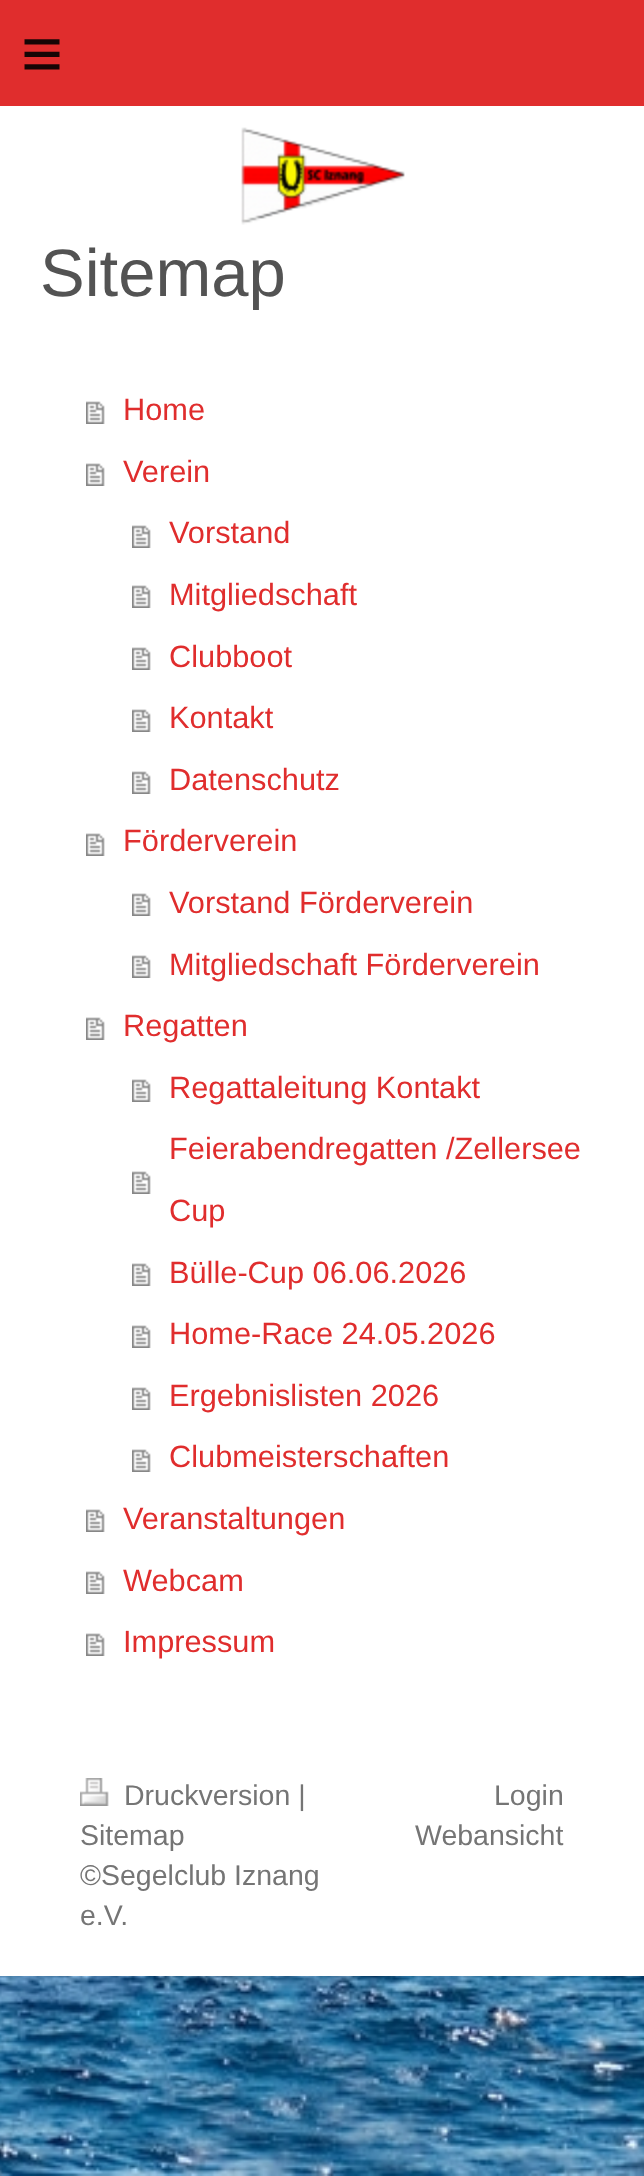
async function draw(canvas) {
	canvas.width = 644;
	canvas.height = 2176;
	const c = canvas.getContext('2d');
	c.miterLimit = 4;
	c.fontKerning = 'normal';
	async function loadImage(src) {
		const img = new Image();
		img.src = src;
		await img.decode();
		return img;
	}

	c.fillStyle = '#fff';
	c.fillRect(0, 0, 644, 2176);
	c.drawImage(await loadImage('img1.png'), 0, 1976, 644, 200);
	c.fillStyle = '#e02d2d';
	c.fillRect(0, 0, 644, 106);
	c.letterSpacing = '21px';
	c.font = '72px Liberation Sans';
	c.fillStyle = '#160505';
	c.fillText('≡', 21, 78);
	c.drawImage(await loadImage('img2.png'), 241, 127, 164, 98);
	c.letterSpacing = '0px';
	c.font = '67px Liberation Sans';
	c.fillStyle = '#535353';
	c.fillText('Sitemap', 40, 296);
	c.drawImage(await loadImage('img3.png'), 86, 401, 19, 23);
	c.font = '30.75px Liberation Sans';
	c.fillStyle = '#e02d2d';
	c.fillText('Home', 123, 420);
	c.drawImage(await loadImage('img3.png'), 86, 463, 19, 23);
	c.fillText('Verein', 123, 482);
	c.drawImage(await loadImage('img3.png'), 132, 525, 19, 23);
	c.fillText('Vorstand', 169, 543);
	c.drawImage(await loadImage('img3.png'), 132, 585, 19, 23);
	c.fillText('Mitgliedschaft', 169, 605);
	c.drawImage(await loadImage('img3.png'), 132, 647, 19, 23);
	c.fillText('Clubboot', 169, 667);
	c.drawImage(await loadImage('img3.png'), 132, 709, 19, 23);
	c.fillText('Kontakt', 169, 728);
	c.drawImage(await loadImage('img3.png'), 132, 771, 19, 23);
	c.fillText('Datenschutz', 169, 790);
	c.drawImage(await loadImage('img3.png'), 86, 833, 19, 23);
	c.fillText('Förderverein', 123, 851);
	c.drawImage(await loadImage('img3.png'), 132, 893, 19, 23);
	c.fillText('Vorstand Förderverein', 169, 913);
	c.drawImage(await loadImage('img3.png'), 132, 955, 19, 23);
	c.fillText('Mitgliedschaft Förderverein', 169, 975);
	c.drawImage(await loadImage('img3.png'), 86, 1017, 19, 23);
	c.fillText('Regatten', 123, 1036);
	c.drawImage(await loadImage('img3.png'), 132, 1079, 19, 23);
	c.fillText('Regattaleitung Kontakt', 169, 1098);
	c.drawImage(await loadImage('img3.png'), 132, 1171, 19, 23);
	c.fillText('Feierabendregatten /Zellersee', 169, 1159);
	c.fillText('Cup', 169, 1221);
	c.drawImage(await loadImage('img3.png'), 132, 1263, 19, 23);
	c.fillText('Bülle-Cup 06.06.2026', 169, 1283);
	c.drawImage(await loadImage('img3.png'), 132, 1325, 19, 23);
	c.fillText('Home-Race 24.05.2026', 169, 1344);
	c.drawImage(await loadImage('img3.png'), 132, 1387, 19, 23);
	c.fillText('Ergebnislisten 2026', 169, 1406);
	c.drawImage(await loadImage('img3.png'), 132, 1449, 19, 23);
	c.fillText('Clubmeisterschaften', 169, 1467);
	c.drawImage(await loadImage('img3.png'), 86, 1509, 19, 23);
	c.fillText('Veranstaltungen', 123, 1529);
	c.drawImage(await loadImage('img3.png'), 86, 1571, 19, 23);
	c.fillText('Webcam', 123, 1591);
	c.drawImage(await loadImage('img3.png'), 86, 1633, 19, 23);
	c.fillText('Impressum', 123, 1652);
	c.drawImage(await loadImage('img4.png'), 80, 1778, 29, 28);
	c.font = '28.5px Liberation Sans';
	c.fillStyle = '#757575';
	for (const [text, x, y] of [
		['Druckversion |', 124, 1805],
		['Sitemap', 80, 1845],
		['©Segelclub Iznang', 80, 1885],
		['e.V.', 80, 1925],
		['Login', 494, 1805],
		['Webansicht', 415, 1845],
	]) {
		c.fillText(text, x, y);
	}
}

draw(document.querySelector('canvas'));
